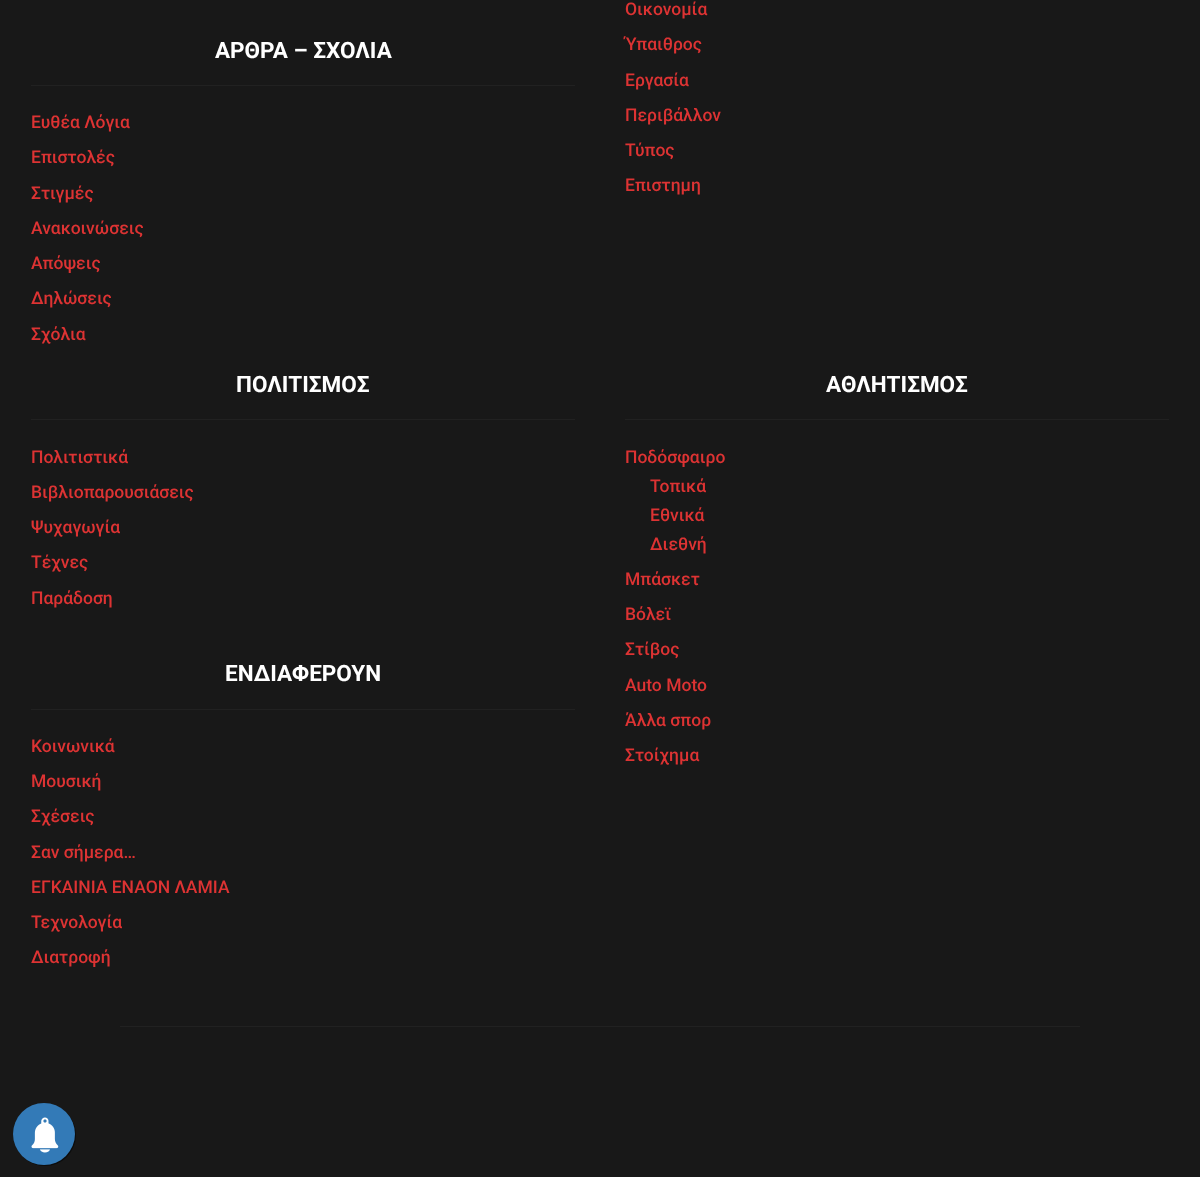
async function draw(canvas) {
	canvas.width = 1200;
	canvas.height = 1177;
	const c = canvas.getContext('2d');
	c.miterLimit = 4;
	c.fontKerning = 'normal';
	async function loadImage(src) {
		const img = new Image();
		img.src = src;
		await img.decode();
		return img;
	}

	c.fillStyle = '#181818';
	c.fillRect(0, 0, 1200, 1177);
	c.fillStyle = '#212121';
	c.fillRect(31, 85, 544, 1);
	c.font = 'bold 22.5px Roboto';
	c.fillStyle = '#fff';
	c.fillText('ΑΡΘΡΑ – ΣΧΟΛΙΑ', 215, 58);
	c.font = '500 17.5px Roboto';
	c.fillStyle = '#d33';
	for (const [text, x, y] of [
		['Ευθέα Λόγια', 31, 128],
		['Επιστολές', 31, 163],
		['Στιγμές', 31, 199],
		['Ανακοινώσεις', 31, 234],
		['Απόψεις', 31, 269],
		['Δηλώσεις', 31, 304],
		['Σχόλια', 31, 340],
		['Οικονομία', 625, 15],
		['Ύπαιθρος', 625, 50],
		['Εργασία', 625, 86],
		['Περιβάλλον', 625, 121],
		['Τύπος', 625, 156],
		['Επιστημη', 625, 191],
	]) {
		c.fillText(text, x, y);
	}
	c.fillStyle = '#212121';
	c.fillRect(31, 419, 544, 1);
	c.font = 'bold 22.5px Roboto';
	c.fillStyle = '#fff';
	c.fillText('ΠΟΛΙΤΙΣΜΟΣ', 236, 392);
	c.font = '500 17.5px Roboto';
	c.fillStyle = '#d33';
	for (const [text, x, y] of [
		['Πολιτιστικά', 31, 463],
		['Βιβλιοπαρουσιάσεις', 31, 498],
		['Ψυχαγωγία', 31, 533],
		['Τέχνες', 31, 568],
		['Παράδοση', 31, 604],
	]) {
		c.fillText(text, x, y);
	}
	c.fillStyle = '#212121';
	c.fillRect(31, 709, 544, 1);
	c.font = 'bold 22.5px Roboto';
	c.fillStyle = '#fff';
	c.fillText('ΕΝΔΙΑΦΕΡΟΥΝ', 225, 681);
	c.font = '500 17.5px Roboto';
	c.fillStyle = '#d33';
	for (const [text, x, y] of [
		['Κοινωνικά', 31, 752],
		['Μουσική', 31, 787],
		['Σχέσεις', 31, 822],
		['Σαν σήμερα…', 31, 858],
		['ΕΓΚΑΙΝΙΑ ΕΝΑΟΝ ΛΑΜΙΑ', 31, 893],
		['Τεχνολογία', 31, 928],
		['Διατροφή', 31, 963],
	]) {
		c.fillText(text, x, y);
	}
	c.fillStyle = '#212121';
	c.fillRect(625, 419, 544, 1);
	c.font = 'bold 22.5px Roboto';
	c.fillStyle = '#fff';
	c.fillText('ΑΘΛΗΤΙΣΜΟΣ', 826, 392);
	c.font = '500 17.5px Roboto';
	c.fillStyle = '#d33';
	for (const [text, x, y] of [
		['Ποδόσφαιρο', 625, 463],
		['Τοπικά', 650, 492],
		['Εθνικά', 650, 521],
		['Διεθνή', 650, 550],
		['Μπάσκετ', 625, 585],
		['Βόλεϊ', 625, 620],
		['Στίβος', 625, 655],
		['Auto Moto', 625, 691],
		['Άλλα σπορ', 625, 726],
		['Στοίχημα', 625, 761],
	]) {
		c.fillText(text, x, y);
	}
	c.fillStyle = '#212121';
	c.fillRect(120, 1026, 960, 1);
	c.fillStyle = '#00000080';
	c.filter = 'blur(0.5px)';
	c.beginPath();
	c.roundRect(14, 1104, 62, 62, 31);
	c.fill();
	c.filter = 'none';
	c.fillStyle = '#337ab7';
	c.beginPath();
	c.arc(44, 1134, 31, 0, 2 * Math.PI);
	c.fill();
	c.drawImage(await loadImage('img1.png'), 31, 1117, 28, 36);
}

draw(document.querySelector('canvas'));
